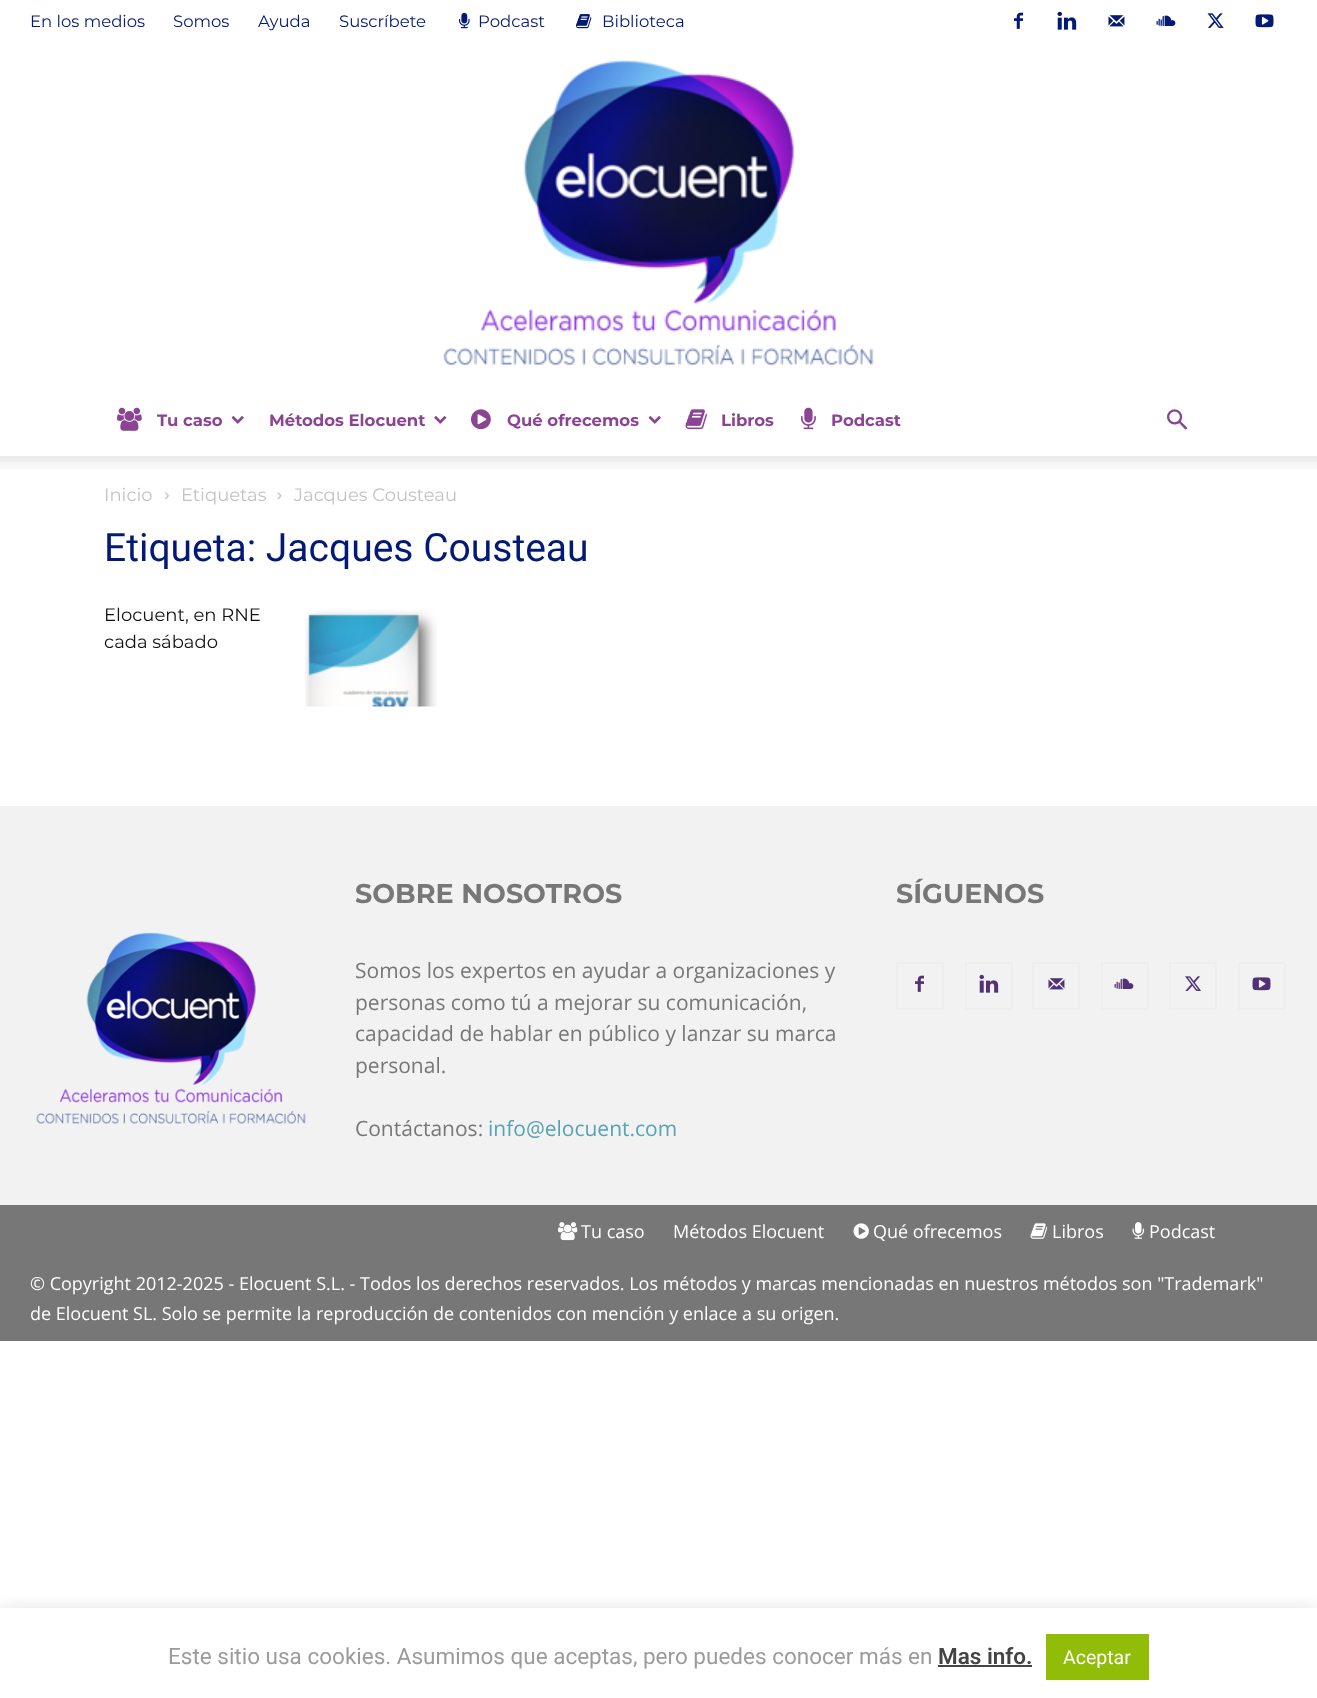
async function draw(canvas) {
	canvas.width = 1317;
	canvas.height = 1698;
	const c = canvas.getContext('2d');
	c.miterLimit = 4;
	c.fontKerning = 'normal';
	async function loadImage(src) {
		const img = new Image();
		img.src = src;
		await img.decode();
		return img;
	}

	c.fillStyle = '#fff';
	c.fillRect(0, 0, 1317, 1698);
	c.font = '16.5px Montserrat';
	c.fillStyle = '#031976';
	for (const [text, x, y] of [
		['En los medios', 30, 27],
		['Somos', 173, 27],
		['Ayuda', 258, 27],
		['Suscríbete', 339, 27],
	]) {
		c.fillText(text, x, y);
	}
	c.drawImage(await loadImage('img1.png'), 459, 12, 11, 17);
	c.fillText('Podcast', 478, 27);
	c.drawImage(await loadImage('img2.png'), 576, 14, 16, 15);
	c.fillText('Biblioteca', 602, 27);
	c.drawImage(await loadImage('img3.png'), 1014, 12, 9, 17);
	c.drawImage(await loadImage('img4.png'), 1057, 11, 20, 19);
	c.drawImage(await loadImage('img5.png'), 1108, 15, 17, 12);
	c.drawImage(await loadImage('img6.png'), 1156, 15, 20, 11);
	c.drawImage(await loadImage('img7.png'), 1207, 13, 17, 15);
	c.drawImage(await loadImage('img8.png'), 1255, 14, 19, 14);
	c.drawImage(await loadImage('img9.png'), 443, 60, 431, 306);
	c.drawImage(await loadImage('img10.png'), 117, 407, 25, 24);
	c.font = 'bold 16.5px Montserrat';
	c.fillStyle = '#8b4494';
	c.fillText('Tu caso', 157, 426);
	c.drawImage(await loadImage('img11.png'), 231, 416, 13, 8);
	c.fillText('Métodos Elocuent', 269, 426);
	c.drawImage(await loadImage('img12.png'), 434, 416, 13, 8);
	c.drawImage(await loadImage('img13.png'), 471, 409, 20, 21);
	c.fillText('Qué ofrecemos', 507, 426);
	c.drawImage(await loadImage('img11.png'), 648, 416, 13, 8);
	c.drawImage(await loadImage('img14.png'), 685, 409, 22, 21);
	c.fillText('Libros', 721, 426);
	c.drawImage(await loadImage('img15.png'), 801, 407, 15, 23);
	c.fillText('Podcast', 831, 426);
	c.drawImage(await loadImage('img16.png'), 1167, 409, 20, 21);
	c.drawImage(await loadImage('img17.png'), 0, 456, 1317, 13);
	c.font = '18px Montserrat';
	c.fillStyle = '#c3c3c3';
	c.fillText('Inicio', 104, 501);
	c.drawImage(await loadImage('img18.png'), 165, 492, 4, 8);
	c.fillText('Etiquetas', 181, 501);
	c.drawImage(await loadImage('img19.png'), 277, 492, 5, 8);
	c.fillText('Jacques Cousteau', 294, 501);
	c.font = '39px Roboto';
	c.fillStyle = '#031976';
	c.fillText('Etiqueta: Jacques Cousteau', 104, 561);
	c.font = '18px Montserrat';
	c.fillStyle = '#111';
	c.fillText('Elocuent, en RNE', 104, 621);
	c.fillText('cada sábado', 104, 648);
	c.drawImage(await loadImage('img20.png'), 305, 610, 132, 97);
	c.fillStyle = '#f2f2f2';
	c.fillRect(0, 806, 1317, 399);
	c.drawImage(await loadImage('img21.png'), 36, 932, 270, 192);
	c.font = 'bold 27px Montserrat';
	c.fillStyle = '#777';
	c.fillText('SOBRE NOSOTROS', 355, 903);
	c.font = '21px Open Sans';
	for (const [text, x, y] of [
		['Somos los expertos en ayudar a organizaciones y', 355, 978],
		['personas como tú a mejorar su comunicación,', 355, 1010],
		['capacidad de hablar en público y lanzar su marca', 355, 1041],
		['personal.', 355, 1073],
		['Contáctanos:', 355, 1136],
	]) {
		c.fillText(text, x, y);
	}
	c.fillStyle = '#56a4b1';
	c.fillText('info@elocuent.com', 488, 1136);
	c.font = 'bold 27px Montserrat';
	c.fillStyle = '#777';
	c.fillText('SÍGUENOS', 896, 903);
	c.drawImage(await loadImage('img22.png'), 915, 975, 9, 17);
	c.strokeStyle = '#eee';
	c.lineWidth = 2;
	c.strokeRect(897, 963, 46, 46);
	c.drawImage(await loadImage('img23.png'), 979, 974, 20, 19);
	c.strokeRect(966, 963, 46, 46);
	c.drawImage(await loadImage('img24.png'), 1048, 978, 17, 12);
	c.strokeRect(1033, 963, 46, 46);
	c.drawImage(await loadImage('img25.png'), 1114, 978, 20, 11);
	c.strokeRect(1102, 963, 46, 46);
	c.drawImage(await loadImage('img26.png'), 1185, 976, 16, 15);
	c.strokeRect(1170, 963, 46, 46);
	c.drawImage(await loadImage('img27.png'), 1252, 977, 19, 14);
	c.strokeRect(1239, 963, 46, 46);
	c.fillRect(0, 1205, 1317, 136);
	c.drawImage(await loadImage('img28.png'), 558, 1222, 20, 19);
	c.font = '18px Open Sans';
	c.fillStyle = '#fff';
	c.fillText('Tu caso', 581, 1238);
	c.fillText('Métodos Elocuent', 673, 1238);
	c.drawImage(await loadImage('img29.png'), 853, 1223, 16, 16);
	c.fillText('Qué ofrecemos', 873, 1238);
	c.drawImage(await loadImage('img30.png'), 1030, 1223, 18, 16);
	c.fillText('Libros', 1052, 1238);
	c.drawImage(await loadImage('img31.png'), 1132, 1222, 13, 17);
	for (const [text, x, y] of [
		['Podcast', 1149, 1238],
		['© Copyright 2012-2025 - Elocuent S.L. - Todos los derechos reservados. Los métodos y marcas mencionadas en nuestros métodos son "Trademark"', 30, 1290],
		['de Elocuent SL. Solo se permite la reproducción de contenidos con mención y enlace a su origen.', 30, 1320],
	]) {
		c.fillText(text, x, y);
	}
	c.save();
	c.beginPath();
	c.rect(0, 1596, 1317, 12);
	c.clip();
	c.fillStyle = '#acabab4d';
	c.filter = 'blur(7.5px)';
	c.beginPath();
	c.rect(0, 1607, 1317, 90);
	c.fill();
	c.filter = 'none';
	c.restore();
	c.font = '22.5px Roboto';
	c.fillStyle = '#9b9b9b';
	c.fillText('Este sitio usa cookies. Asumimos que aceptas, pero puedes conocer más en', 168, 1664);
	c.font = '600 22.5px Roboto';
	c.fillStyle = '#444';
	c.fillText('Mas info.', 938, 1664);
	c.fillRect(938, 1665, 94, 2);
	c.fillStyle = '#91bd09';
	c.fillRect(1046, 1634, 103, 46);
	c.font = '19.5px Roboto';
	c.fillStyle = '#fff';
	c.fillText('Aceptar', 1063, 1664);
}

draw(document.querySelector('canvas'));
